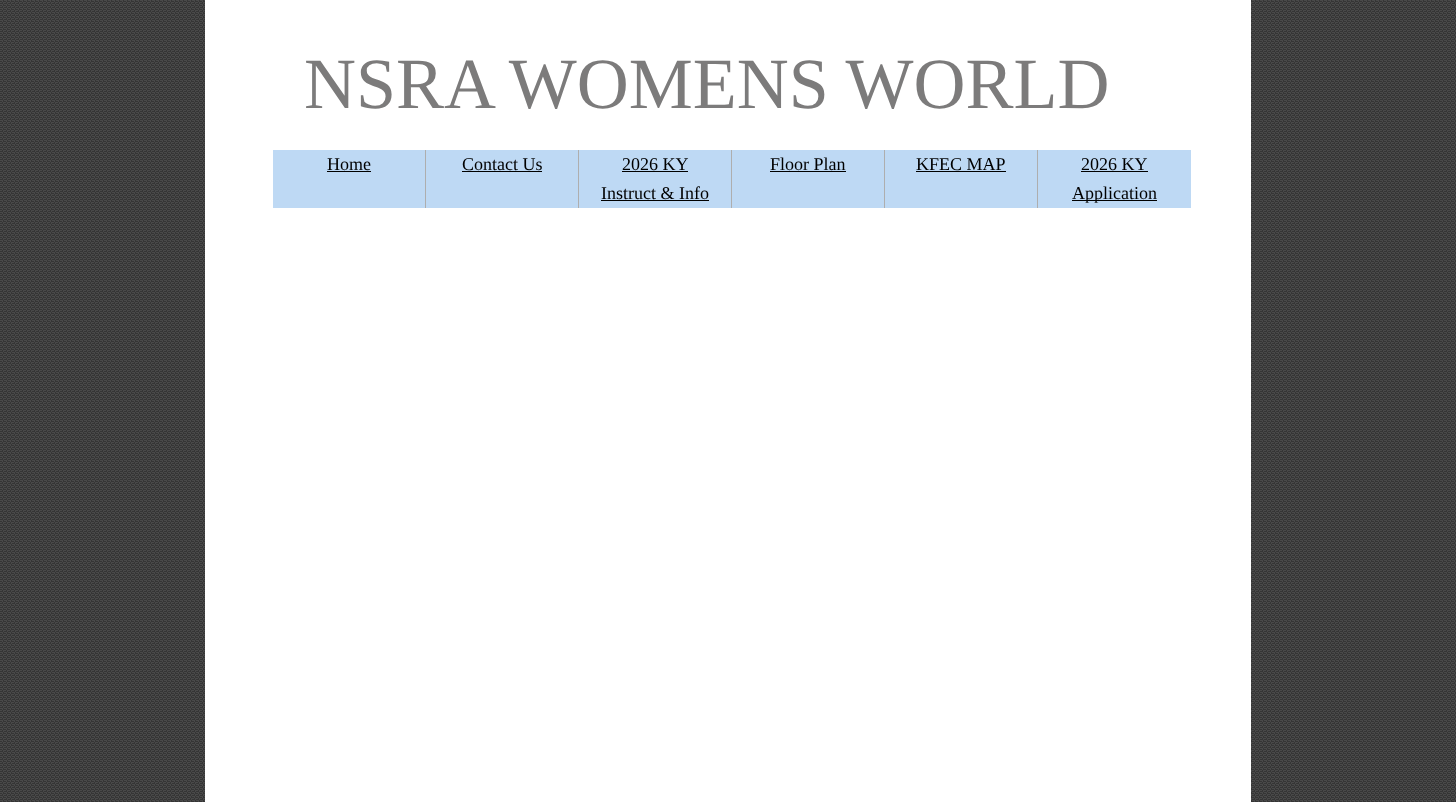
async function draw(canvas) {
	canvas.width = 1456;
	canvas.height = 802;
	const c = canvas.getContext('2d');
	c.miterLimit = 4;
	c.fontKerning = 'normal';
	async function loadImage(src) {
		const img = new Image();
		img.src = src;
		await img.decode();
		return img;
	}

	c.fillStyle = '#fff';
	c.fillRect(0, 0, 1456, 802);
	c.drawImage(await loadImage('img1.png'), 0, 0, 1456, 802);
	c.fillRect(205, 0, 1046, 802);
	c.font = '72px Liberation Serif';
	c.fillStyle = '#7c7b7b';
	c.fillText('NSRA WOMENS WORLD', 304, 108);
	c.fillStyle = '#bed9f4';
	c.fillRect(273, 150, 152, 58);
	c.fillStyle = '#aeaeae';
	c.fillRect(425, 150, 1, 58);
	c.font = '18px Liberation Serif';
	c.fillStyle = '#000';
	c.fillText('Home', 327, 170);
	for (const [x, y, w, h, color] of [
		[327, 171, 44, 1, '#000'],
		[426, 150, 152, 58, '#bed9f4'],
		[578, 150, 1, 58, '#aeaeae'],
	]) {
		c.fillStyle = color;
		c.fillRect(x, y, w, h);
	}
	c.fillStyle = '#000';
	c.fillText('Contact Us', 462, 170);
	for (const [x, y, w, h, color] of [
		[462, 171, 80, 1, '#000'],
		[579, 150, 152, 58, '#bed9f4'],
		[731, 150, 1, 58, '#aeaeae'],
	]) {
		c.fillStyle = color;
		c.fillRect(x, y, w, h);
	}
	c.fillStyle = '#000';
	c.fillText('2026 KY', 622, 170);
	c.fillRect(622, 171, 66, 1);
	c.fillText('Instruct & Info', 601, 199);
	for (const [x, y, w, h, color] of [
		[601, 200, 108, 1, '#000'],
		[732, 150, 152, 58, '#bed9f4'],
		[884, 150, 1, 58, '#aeaeae'],
	]) {
		c.fillStyle = color;
		c.fillRect(x, y, w, h);
	}
	c.fillStyle = '#000';
	c.fillText('Floor Plan', 770, 170);
	for (const [x, y, w, h, color] of [
		[770, 171, 76, 1, '#000'],
		[885, 150, 152, 58, '#bed9f4'],
		[1037, 150, 1, 58, '#aeaeae'],
	]) {
		c.fillStyle = color;
		c.fillRect(x, y, w, h);
	}
	c.fillStyle = '#000';
	c.fillText('KFEC MAP', 916, 170);
	c.fillRect(916, 171, 90, 1);
	c.fillStyle = '#bed9f4';
	c.fillRect(1038, 150, 153, 58);
	c.fillStyle = '#000';
	c.fillText('2026 KY', 1081, 170);
	c.fillRect(1081, 171, 67, 1);
	c.fillRect(1072, 200, 85, 1);
	c.fillText('Application', 1072, 199);
}

draw(document.querySelector('canvas'));
